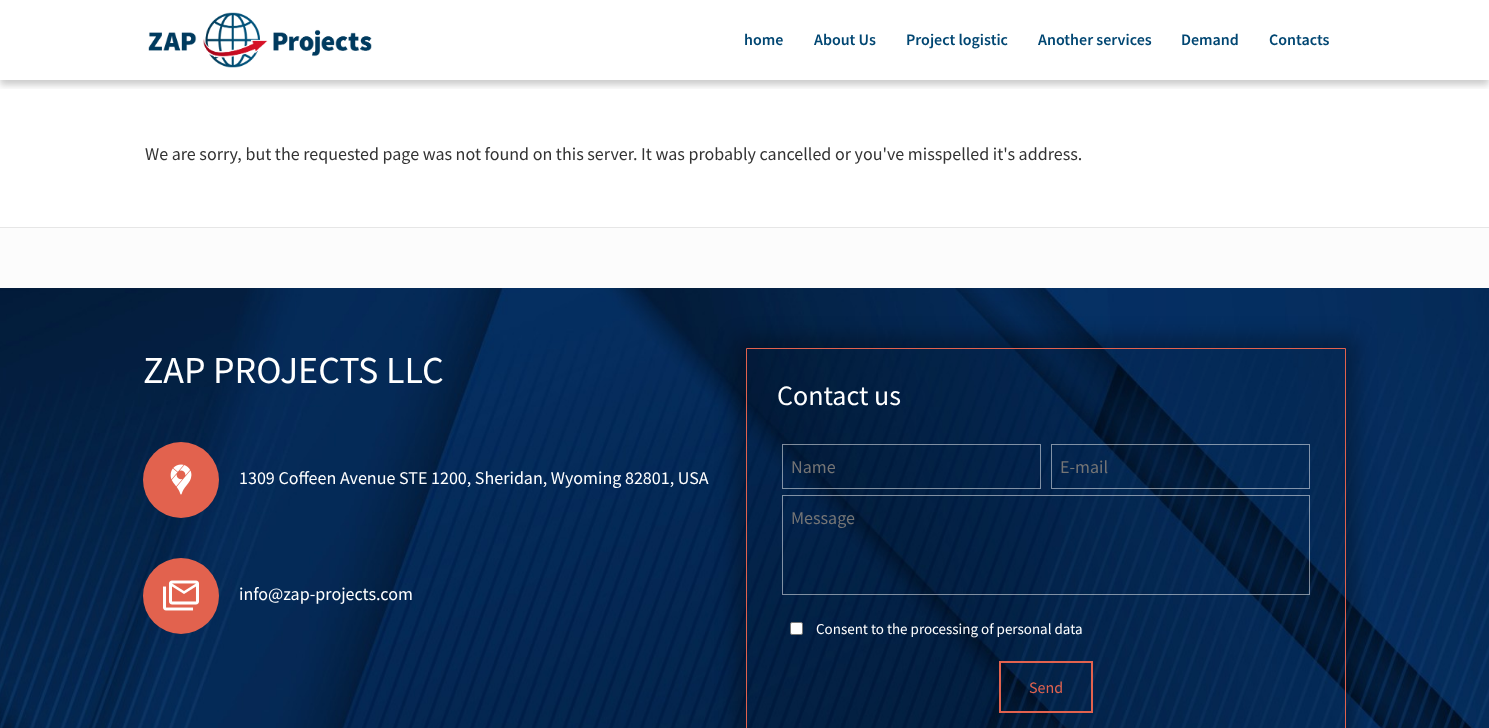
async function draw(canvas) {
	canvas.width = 1489;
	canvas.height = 728;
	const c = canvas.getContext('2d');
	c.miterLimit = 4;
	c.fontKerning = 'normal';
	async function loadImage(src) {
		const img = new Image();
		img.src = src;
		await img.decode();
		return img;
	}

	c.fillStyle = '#fff';
	c.fillRect(0, 0, 1489, 728);
	c.save();
	c.beginPath();
	c.rect(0, 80, 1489, 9);
	c.clip();
	c.fillStyle = '#00000033';
	c.filter = 'blur(3.5px)';
	c.beginPath();
	c.rect(0, 5, 1489, 80);
	c.fill();
	c.filter = 'none';
	c.restore();
	c.drawImage(await loadImage('img1.png'), 148, 12, 224, 56);
	c.font = '600 16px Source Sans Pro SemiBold';
	c.fillStyle = '#004672';
	for (const [text, x, y] of [
		['home', 744, 45],
		['About Us', 814, 45],
		['Project logistic', 906, 45],
		['Another services', 1038, 45],
		['Demand', 1181, 45],
		['Contacts', 1269, 45],
	]) {
		c.fillText(text, x, y);
	}
	c.fillStyle = '#e6e6e6';
	c.fillRect(0, 227, 1489, 1);
	c.font = '18px Source Sans Pro';
	c.fillStyle = '#333';
	c.fillText('We are sorry, but the requested page was not found on this server. It was probably cancelled or you\'ve misspelled it\'s address.', 145, 160);
	c.fillStyle = '#fcfcfc';
	c.fillRect(0, 228, 1489, 60);
	c.drawImage(await loadImage('img2.png'), 0, 288, 1489, 440);
	c.font = '38px Source Sans Pro';
	c.fillStyle = '#fff';
	c.fillText('ZAP PROJECTS LLC', 143, 383);
	c.fillStyle = '#e2624e';
	c.beginPath();
	c.arc(181, 480, 38, 0, 2 * Math.PI);
	c.fill();
	c.drawImage(await loadImage('img3.png'), 170, 464, 22, 31);
	c.font = '18px Source Sans Pro';
	c.fillStyle = '#fff';
	c.fillText('1309 Coffeen Avenue STE 1200, Sheridan, Wyoming 82801, USA', 239, 484);
	c.fillStyle = '#e2624e';
	c.beginPath();
	c.arc(181, 596, 38, 0, 2 * Math.PI);
	c.fill();
	c.drawImage(await loadImage('img4.png'), 163, 580, 36, 31);
	c.fillStyle = '#fff';
	c.fillText('info@zap-projects.com', 239, 600);
	c.save();
	c.beginPath();
	c.moveTo(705, 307);
	c.lineTo(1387, 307);
	c.lineTo(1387, 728);
	c.lineTo(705, 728);
	c.closePath();
	c.moveTo(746, 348);
	c.lineTo(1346, 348);
	c.lineTo(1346, 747);
	c.lineTo(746, 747);
	c.closePath();
	c.clip('evenodd');
	c.fillStyle = '#0000004d';
	c.filter = 'blur(10px)';
	c.beginPath();
	c.rect(736, 338, 620, 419);
	c.fill();
	c.filter = 'none';
	c.restore();
	c.fillStyle = '#0000001a';
	c.beginPath();
	c.rect(746.5, 348.5, 599, 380);
	c.fill();
	c.strokeStyle = '#e2624e';
	c.stroke();
	c.font = '28px Source Sans Pro';
	c.fillStyle = '#fff';
	c.fillText('Contact us', 777, 405);
	c.strokeStyle = '#ffffff80';
	c.strokeRect(782.5, 444.5, 258, 44);
	c.font = '18px Source Sans Pro';
	c.fillStyle = '#757575';
	c.fillText('Name', 791, 473);
	c.strokeRect(1051.5, 444.5, 258, 44);
	c.fillText('E-mail', 1060, 473);
	c.strokeRect(782.5, 495.5, 527, 99);
	c.fillText('Message', 791, 524);
	c.fillStyle = '#fff';
	c.beginPath();
	c.roundRect(790.5, 622.5, 12, 12, 1.5);
	c.fill();
	c.strokeStyle = '#767676';
	c.stroke();
	c.font = '15px Source Sans Pro';
	c.fillText('Consent to the processing of personal data', 816, 634);
	c.strokeStyle = '#e2624e';
	c.lineWidth = 2;
	c.strokeRect(1000, 662, 92, 50);
	c.font = '16px Source Sans Pro';
	c.fillStyle = '#e2624e';
	c.fillText('Send', 1029, 693);
}

draw(document.querySelector('canvas'));
